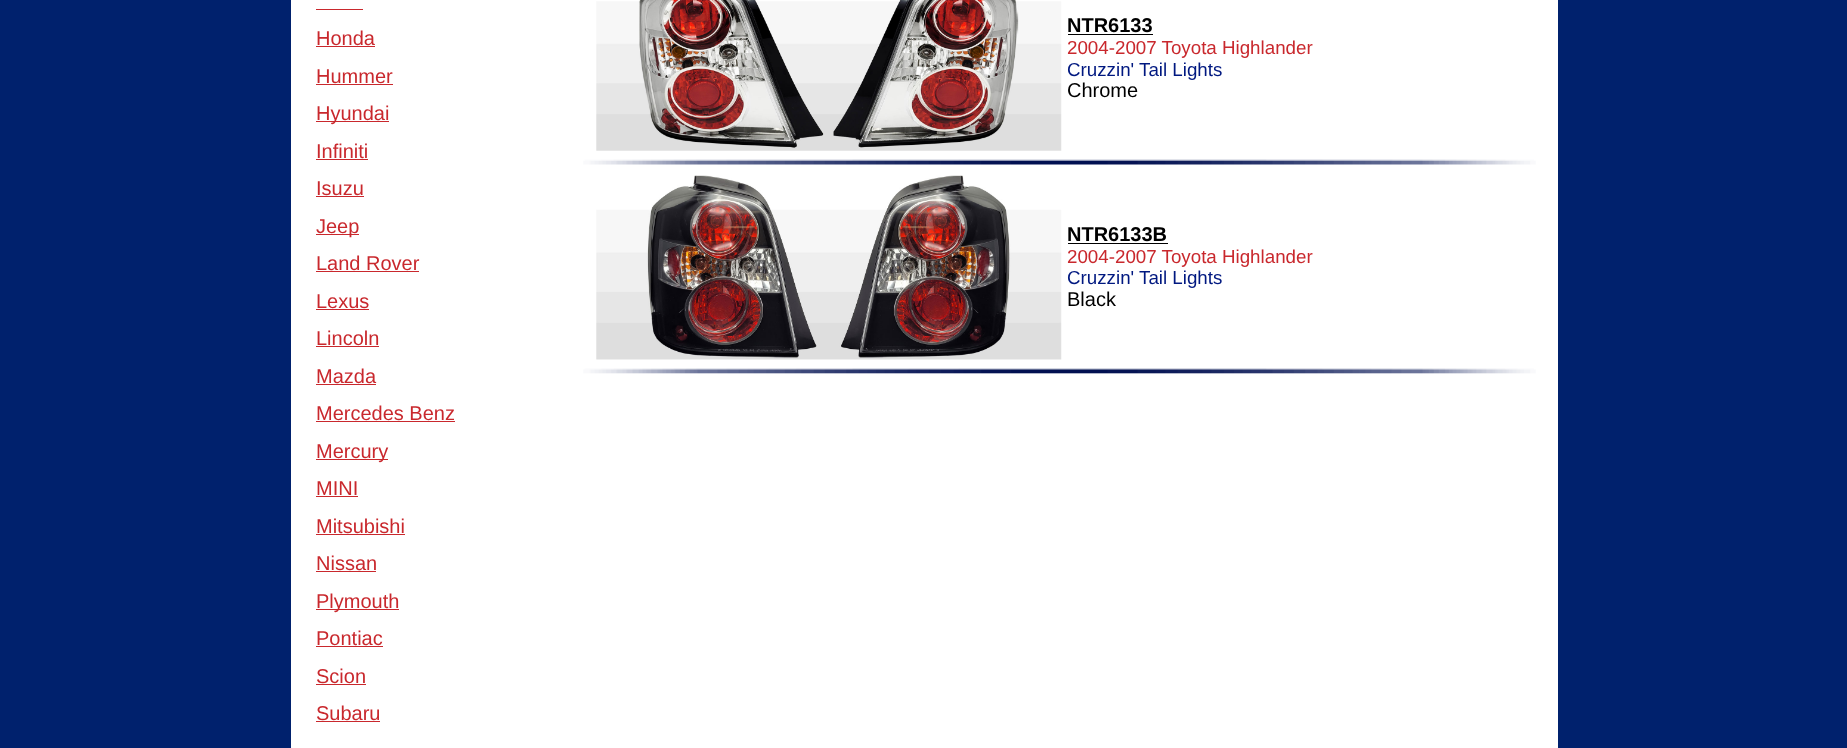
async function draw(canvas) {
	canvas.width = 1847;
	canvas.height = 748;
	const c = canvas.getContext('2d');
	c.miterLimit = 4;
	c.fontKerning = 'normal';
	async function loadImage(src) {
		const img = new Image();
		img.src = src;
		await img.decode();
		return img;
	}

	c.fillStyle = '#00216d';
	c.fillRect(0, 0, 1847, 748);
	c.fillStyle = '#fff';
	c.fillRect(291, 0, 1267, 748);
	c.fillStyle = '#c9282d';
	c.fillRect(316, 9, 47, 1);
	c.font = '20px Liberation Sans';
	c.fillText('Honda', 316, 45);
	c.fillRect(316, 46, 59, 1);
	c.fillText('Hummer', 316, 83);
	c.fillRect(316, 84, 77, 1);
	c.fillRect(316, 121, 73, 1);
	c.fillText('Hyundai', 316, 120);
	c.fillText('Infiniti', 316, 158);
	c.fillRect(316, 159, 52, 1);
	c.fillText('Isuzu', 316, 195);
	c.fillRect(316, 196, 48, 1);
	c.fillRect(316, 234, 43, 1);
	c.fillText('Jeep', 316, 233);
	c.fillText('Land Rover', 316, 270);
	c.fillRect(316, 271, 103, 1);
	c.fillText('Lexus', 316, 308);
	c.fillRect(316, 309, 53, 1);
	c.fillText('Lincoln', 316, 345);
	c.fillRect(316, 346, 63, 1);
	c.fillText('Mazda', 316, 383);
	c.fillRect(316, 384, 60, 1);
	c.fillText('Mercedes Benz', 316, 420);
	c.fillRect(316, 421, 139, 1);
	c.fillRect(316, 459, 72, 1);
	c.fillText('Mercury', 316, 458);
	c.fillText('MINI', 316, 495);
	c.fillRect(316, 496, 42, 1);
	c.fillText('Mitsubishi', 316, 533);
	c.fillRect(316, 534, 89, 1);
	c.fillText('Nissan', 316, 570);
	c.fillRect(316, 571, 60, 1);
	c.fillRect(316, 609, 83, 1);
	c.fillText('Plymouth', 316, 608);
	c.fillText('Pontiac', 316, 645);
	c.fillRect(316, 646, 67, 1);
	c.fillText('Scion', 316, 683);
	c.fillRect(316, 684, 50, 1);
	c.fillText('Subaru', 316, 720);
	c.fillRect(316, 721, 64, 1);
	c.drawImage(await loadImage('img1.png'), 596, 0, 466, 151);
	c.font = 'bold 20px Liberation Sans';
	c.fillStyle = '#000';
	c.fillText('NTR6133', 1067, 32);
	c.fillRect(1068, 34, 85, 1);
	c.font = '18.75px Liberation Sans';
	c.fillStyle = '#c9282d';
	c.fillText('2004-2007 Toyota Highlander', 1067, 54);
	c.fillStyle = '#001880';
	c.fillText('Cruzzin\' Tail Lights', 1067, 76);
	c.font = '20px Liberation Sans';
	c.fillStyle = '#000';
	c.fillText('Chrome', 1067, 97);
	c.drawImage(await loadImage('img2.png'), 583, 159, 953, 6);
	c.drawImage(await loadImage('img3.png'), 596, 175, 466, 185);
	c.font = 'bold 20px Liberation Sans';
	c.fillText('NTR6133B', 1067, 241);
	c.fillRect(1068, 243, 100, 1);
	c.font = '18.75px Liberation Sans';
	c.fillStyle = '#c9282d';
	c.fillText('2004-2007 Toyota Highlander', 1067, 263);
	c.fillStyle = '#001880';
	c.fillText('Cruzzin\' Tail Lights', 1067, 284);
	c.font = '20px Liberation Sans';
	c.fillStyle = '#000';
	c.fillText('Black', 1067, 306);
	c.drawImage(await loadImage('img4.png'), 583, 368, 953, 6);
}

draw(document.querySelector('canvas'));
